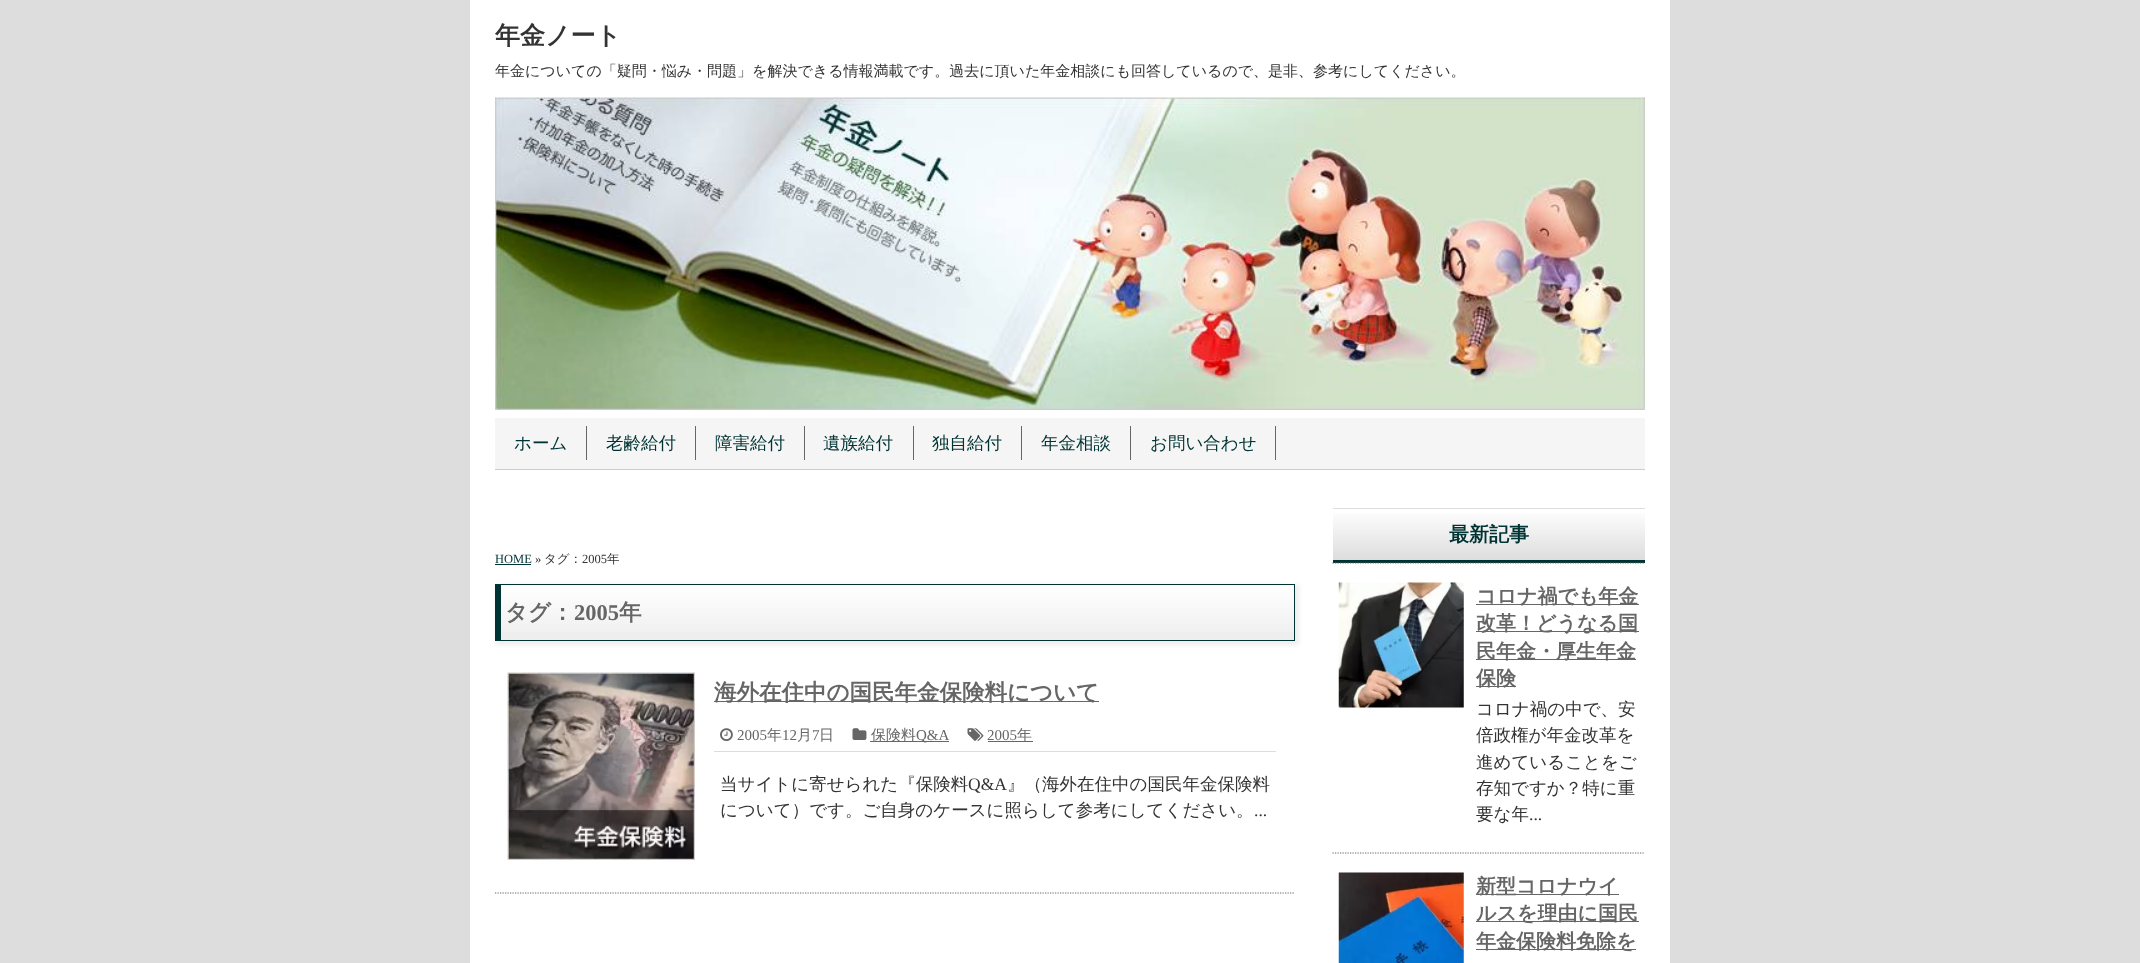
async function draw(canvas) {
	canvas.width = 2140;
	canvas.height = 963;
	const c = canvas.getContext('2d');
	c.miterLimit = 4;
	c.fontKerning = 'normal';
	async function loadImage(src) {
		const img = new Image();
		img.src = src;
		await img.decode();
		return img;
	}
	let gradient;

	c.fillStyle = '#ddd';
	c.fillRect(0, 0, 2140, 963);
	c.fillStyle = '#fff';
	c.fillRect(470, 0, 1200, 963);
	c.font = 'bold 25px WenQuanYi Zen Hei';
	c.fillStyle = '#333';
	c.fillText('年金ノート', 495, 44);
	c.font = '500 15px WenQuanYi Zen Hei';
	c.fillText('年金についての「疑問・悩み・問題」を解決できる情報満載です。過去に頂いた年金相談にも回答しているので、是非、参考にしてください。', 495, 76);
	c.drawImage(await loadImage('img1.png'), 495, 97, 1150, 313);
	for (const [x, y, w, h, color] of [
		[495, 418, 1150, 51, '#f5f5f5'],
		[495, 469, 1150, 1, '#ccc'],
		[586, 426, 1, 34, '#666'],
	]) {
		c.fillStyle = color;
		c.fillRect(x, y, w, h);
	}
	c.font = '500 17.5px WenQuanYi Zen Hei';
	c.fillStyle = '#033';
	c.fillText('ホーム', 514, 449);
	c.fillStyle = '#666';
	c.fillRect(695, 426, 1, 34);
	c.fillStyle = '#033';
	c.fillText('老齢給付', 606, 449);
	c.fillStyle = '#666';
	c.fillRect(804, 426, 1, 34);
	c.fillStyle = '#033';
	c.fillText('障害給付', 715, 449);
	c.fillStyle = '#666';
	c.fillRect(913, 426, 1, 34);
	c.fillStyle = '#033';
	c.fillText('遺族給付', 823, 449);
	c.fillStyle = '#666';
	c.fillRect(1021, 426, 1, 34);
	c.fillStyle = '#033';
	c.fillText('独自給付', 932, 449);
	c.fillStyle = '#666';
	c.fillRect(1130, 426, 1, 34);
	c.fillStyle = '#033';
	c.fillText('年金相談', 1041, 449);
	c.fillStyle = '#666';
	c.fillRect(1275, 426, 1, 34);
	c.fillStyle = '#033';
	c.fillText('お問い合わせ', 1150, 449);
	c.font = '12.5px Liberation Serif';
	c.fillText('HOME', 495, 563);
	c.fillRect(495, 564, 36, 1);
	c.fillStyle = '#333';
	c.fillText('»', 535, 563);
	c.font = '500 12.5px WenQuanYi Zen Hei';
	c.fillText('タグ：', 544, 563);
	c.font = '12.5px Liberation Serif';
	c.fillText('2005', 582, 563);
	c.font = '500 12.5px WenQuanYi Zen Hei';
	c.fillText('年', 607, 563);
	c.fillStyle = '#eee';
	c.filter = 'blur(2px)';
	c.beginPath();
	c.rect(496, 585, 803, 60);
	c.fill();
	c.filter = 'none';
	gradient = c.createLinearGradient(501, 585, 501, 640);
	gradient.addColorStop(0, '#fff');
	gradient.addColorStop(1, '#eee');
	c.fillStyle = gradient;
	c.fillRect(501, 585, 793, 47);
	for (const [x, y, w, h, color] of [
		[495, 584, 800, 1, '#033'],
		[1294, 584, 1, 57, '#033'],
		[495, 640, 800, 1, '#033'],
		[495, 584, 6, 57, '#033'],
	]) {
		c.fillStyle = color;
		c.fillRect(x, y, w, h);
	}
	c.font = 'bold 22.5px WenQuanYi Zen Hei';
	c.fillStyle = '#666';
	c.fillText('タグ：', 505, 620);
	c.font = 'bold 22.5px Liberation Serif';
	c.fillText('2005', 574, 620);
	c.font = 'bold 22.5px WenQuanYi Zen Hei';
	c.fillText('年', 619, 620);
	c.beginPath();
	c.moveTo(495, 893);
	c.lineTo(1295, 893);
	c.strokeStyle = '#666';
	c.lineWidth = 1.2;
	c.setLineDash([1.25, 1.25]);
	c.stroke();
	c.drawImage(await loadImage('img2.png'), 507, 672, 188, 188);
	c.fillRect(714, 701, 385, 1);
	c.fillText('海外在住中の国民年金保険料について', 714, 700);
	c.fillStyle = '#ddd';
	c.fillRect(714, 751, 562, 1);
	c.drawImage(await loadImage('img3.png'), 720, 728, 13, 14);
	c.font = '15px Liberation Serif';
	c.fillStyle = '#666';
	c.fillText('2005', 737, 740);
	c.font = '500 15px WenQuanYi Zen Hei';
	c.fillText('年', 767, 740);
	c.font = '15px Liberation Serif';
	c.fillText('12', 782, 740);
	c.font = '500 15px WenQuanYi Zen Hei';
	c.fillText('月', 797, 740);
	c.font = '15px Liberation Serif';
	c.fillText('7', 812, 740);
	c.font = '500 15px WenQuanYi Zen Hei';
	c.fillText('日', 819, 740);
	c.drawImage(await loadImage('img4.png'), 852, 728, 15, 12);
	c.fillRect(870, 741, 79, 1);
	c.fillText('保険料', 871, 740);
	c.font = '15px Liberation Serif';
	c.fillText('Q&A', 916, 740);
	c.drawImage(await loadImage('img5.png'), 967, 728, 17, 13);
	c.fillText('2005', 987, 740);
	c.fillRect(988, 741, 45, 1);
	c.font = '500 15px WenQuanYi Zen Hei';
	c.fillText('年', 1017, 740);
	c.font = '500 17.5px WenQuanYi Zen Hei';
	c.fillStyle = '#333';
	c.fillText('当サイトに寄せられた『保険料', 720, 790);
	c.font = '17.5px Liberation Serif';
	c.fillText('Q&A', 968, 790);
	c.font = '500 17.5px WenQuanYi Zen Hei';
	c.fillText('』（海外在住中の国民年金保険料', 1007, 790);
	c.fillText('について）です。ご自身のケースに照らして参考にしてください。', 720, 816);
	c.font = '17.5px Liberation Serif';
	c.fillText('...', 1254, 816);
	gradient = c.createLinearGradient(1333, 458, 1333, 509);
	gradient.addColorStop(0, '#fff');
	gradient.addColorStop(1, '#ddd');
	c.fillStyle = gradient;
	c.fillRect(1333, 508, 312, 1);
	gradient = c.createLinearGradient(1333, 509, 1333, 560);
	gradient.addColorStop(0, '#fff');
	gradient.addColorStop(1, '#ddd');
	c.fillStyle = gradient;
	c.fillRect(1333, 513, 312, 47);
	c.fillStyle = '#033';
	c.fillRect(1333, 560, 312, 3);
	c.font = 'bold 20px WenQuanYi Zen Hei';
	c.fillText('最新記事', 1449, 541);
	c.beginPath();
	c.moveTo(1332.5, 563);
	c.lineTo(1645, 563);
	c.stroke();
	c.drawImage(await loadImage('img6.png'), 1338, 582, 126, 126);
	c.fillStyle = '#666';
	c.fillRect(1476, 604, 163, 1);
	c.fillText('コロナ禍でも年金', 1476, 603);
	c.fillRect(1476, 631, 163, 1);
	c.fillText('改革！どうなる国', 1476, 630);
	c.fillRect(1476, 659, 160, 1);
	c.fillText('民年金・厚生年金', 1476, 658);
	c.fillRect(1476, 686, 40, 1);
	c.fillText('保険', 1476, 685);
	c.font = '500 17.5px WenQuanYi Zen Hei';
	c.fillStyle = '#333';
	for (const [text, x, y] of [
		['コロナ禍の中で、安', 1476, 715],
		['倍政権が年金改革を', 1476, 741],
		['進めていることをご', 1476, 768],
		['存知ですか？特に重', 1476, 794],
		['要な年', 1476, 820],
	]) {
		c.fillText(text, x, y);
	}
	c.font = '17.5px Liberation Serif';
	c.fillText('...', 1529, 820);
	c.beginPath();
	c.moveTo(1332.5, 853);
	c.lineTo(1645, 853);
	c.stroke();
	c.drawImage(await loadImage('img7.png'), 1338, 872, 126, 91);
	c.fillStyle = '#666';
	c.fillRect(1476, 894, 143, 1);
	c.font = 'bold 20px WenQuanYi Zen Hei';
	c.fillText('新型コロナウイ', 1476, 893);
	c.fillRect(1476, 921, 163, 1);
	c.fillText('ルスを理由に国民', 1476, 920);
	c.fillRect(1476, 949, 160, 1);
	c.fillText('年金保険料免除を', 1476, 948);
}

draw(document.querySelector('canvas'));
